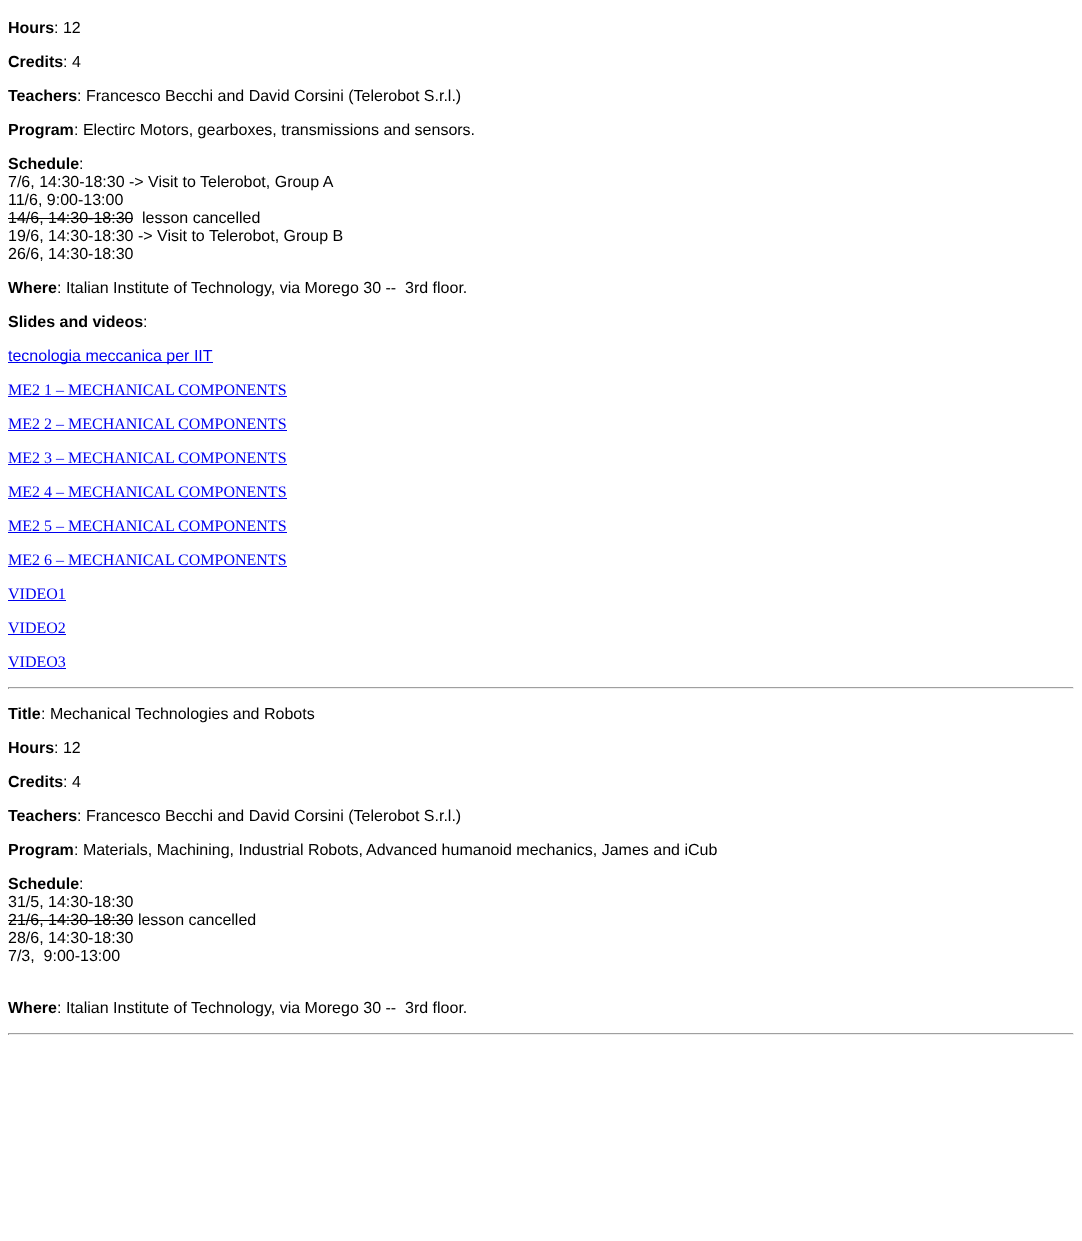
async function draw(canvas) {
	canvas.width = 1082;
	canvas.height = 1241;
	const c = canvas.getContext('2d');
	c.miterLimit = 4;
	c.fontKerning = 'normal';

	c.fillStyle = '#fff';
	c.fillRect(0, 0, 1082, 1241);
	c.font = 'bold 16px Liberation Sans';
	c.fillStyle = '#000';
	c.fillText('Hours', 8, 33);
	c.font = '16px Liberation Sans';
	c.fillText(': 12', 54, 33);
	c.font = 'bold 16px Liberation Sans';
	c.fillText('Credits', 8, 67);
	c.font = '16px Liberation Sans';
	c.fillText(': 4', 63, 67);
	c.font = 'bold 16px Liberation Sans';
	c.fillText('Teachers', 8, 101);
	c.font = '16px Liberation Sans';
	c.fillText(': Francesco Becchi and David Corsini (Telerobot S.r.l.)', 77, 101);
	c.font = 'bold 16px Liberation Sans';
	c.fillText('Program', 8, 135);
	c.font = '16px Liberation Sans';
	c.fillText(': Electirc Motors, gearboxes, transmissions and sensors.', 74, 135);
	c.font = 'bold 16px Liberation Sans';
	c.fillText('Schedule', 8, 169);
	c.font = '16px Liberation Sans';
	for (const [text, x, y] of [
		[':', 79, 169],
		['7/6, 14:30-18:30 -> Visit to Telerobot, Group A', 8, 187],
		['11/6, 9:00-13:00', 8, 205],
		['14/6, 14:30-18:30', 8, 223],
	]) {
		c.fillText(text, x, y);
	}
	c.fillRect(8, 218, 125, 1);
	for (const [text, x, y] of [
		['lesson cancelled', 142, 223],
		['19/6, 14:30-18:30 -> Visit to Telerobot, Group B', 8, 241],
		['26/6, 14:30-18:30', 8, 259],
	]) {
		c.fillText(text, x, y);
	}
	c.font = 'bold 16px Liberation Sans';
	c.fillText('Where', 8, 293);
	c.font = '16px Liberation Sans';
	c.fillText(': Italian Institute of Technology, via Morego 30 --  3rd floor.', 57, 293);
	c.font = 'bold 16px Liberation Sans';
	c.fillText('Slides and videos', 8, 327);
	c.font = '16px Liberation Sans';
	c.fillText(':', 143, 327);
	c.fillStyle = '#00e';
	c.fillRect(8, 362, 205, 1);
	c.fillText('tecnologia meccanica per IIT', 8, 361);
	c.font = '16px Liberation Serif';
	c.fillText('ME2 1 – MECHANICAL COMPONENTS', 8, 395);
	c.fillRect(8, 396, 279, 1);
	c.fillText('ME2 2 – MECHANICAL COMPONENTS', 8, 429);
	c.fillRect(8, 430, 279, 1);
	c.fillText('ME2 3 – MECHANICAL COMPONENTS', 8, 463);
	c.fillRect(8, 464, 279, 1);
	c.fillText('ME2 4 – MECHANICAL COMPONENTS', 8, 497);
	c.fillRect(8, 498, 279, 1);
	c.fillText('ME2 5 – MECHANICAL COMPONENTS', 8, 531);
	c.fillRect(8, 532, 279, 1);
	c.fillText('ME2 6 – MECHANICAL COMPONENTS', 8, 565);
	c.fillRect(8, 566, 279, 1);
	c.fillText('VIDEO1', 8, 599);
	c.fillRect(8, 600, 58, 1);
	c.fillText('VIDEO2', 8, 633);
	c.fillRect(8, 634, 58, 1);
	c.fillText('VIDEO3', 8, 667);
	for (const [x, y, w, h, color] of [
		[8, 668, 58, 1, '#00e'],
		[8, 687, 1066, 1, '#9f9f9f'],
		[1073, 687, 1, 2, '#eee'],
		[8, 688, 1066, 1, '#eee'],
		[8, 687, 1, 2, '#9f9f9f'],
	]) {
		c.fillStyle = color;
		c.fillRect(x, y, w, h);
	}
	c.font = 'bold 16px Liberation Sans';
	c.fillStyle = '#000';
	c.fillText('Title', 8, 719);
	c.font = '16px Liberation Sans';
	c.fillText(': Mechanical Technologies and Robots', 41, 719);
	c.font = 'bold 16px Liberation Sans';
	c.fillText('Hours', 8, 753);
	c.font = '16px Liberation Sans';
	c.fillText(': 12', 54, 753);
	c.font = 'bold 16px Liberation Sans';
	c.fillText('Credits', 8, 787);
	c.font = '16px Liberation Sans';
	c.fillText(': 4', 63, 787);
	c.font = 'bold 16px Liberation Sans';
	c.fillText('Teachers', 8, 821);
	c.font = '16px Liberation Sans';
	c.fillText(': Francesco Becchi and David Corsini (Telerobot S.r.l.)', 77, 821);
	c.font = 'bold 16px Liberation Sans';
	c.fillText('Program', 8, 855);
	c.font = '16px Liberation Sans';
	c.fillText(': Materials, Machining, Industrial Robots,', 74, 855);
	c.fillText('Advanced humanoid mechanics, James and iCub', 366, 855);
	c.font = 'bold 16px Liberation Sans';
	c.fillText('Schedule', 8, 889);
	c.font = '16px Liberation Sans';
	for (const [text, x, y] of [
		[':', 79, 889],
		['31/5, 14:30-18:30', 8, 907],
		['21/6, 14:30-18:30 lesson cancelled', 8, 925],
	]) {
		c.fillText(text, x, y);
	}
	c.fillRect(8, 920, 125, 1);
	c.fillText('28/6, 14:30-18:30', 8, 943);
	c.fillText('7/3,  9:00-13:00', 8, 961);
	c.font = 'bold 16px Liberation Sans';
	c.fillText('Where', 8, 1013);
	c.font = '16px Liberation Sans';
	c.fillText(': Italian Institute of Technology, via Morego 30 --  3rd floor.', 57, 1013);
	for (const [x, y, w, h, color] of [
		[8, 1033, 1066, 1, '#9f9f9f'],
		[1073, 1033, 1, 2, '#eee'],
		[8, 1034, 1066, 1, '#eee'],
		[8, 1033, 1, 2, '#9f9f9f'],
	]) {
		c.fillStyle = color;
		c.fillRect(x, y, w, h);
	}
}

draw(document.querySelector('canvas'));
